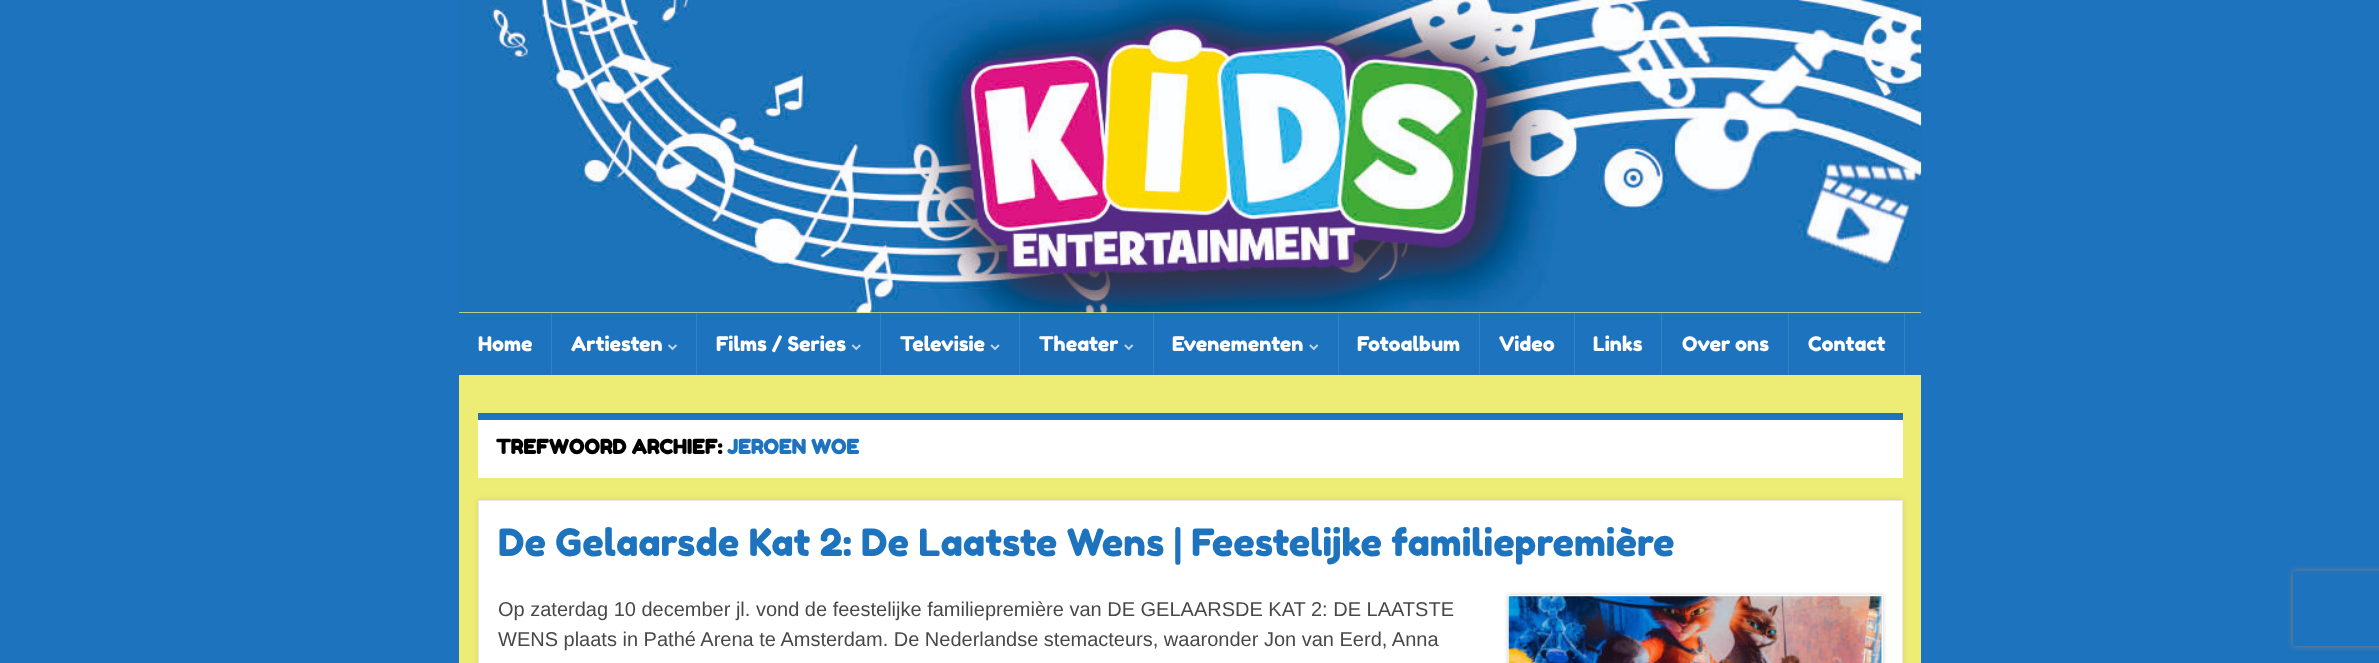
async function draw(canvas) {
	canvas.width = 2379;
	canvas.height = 663;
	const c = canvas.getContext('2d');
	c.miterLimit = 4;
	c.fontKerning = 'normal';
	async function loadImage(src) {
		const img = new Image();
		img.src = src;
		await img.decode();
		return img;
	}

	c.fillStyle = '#1e73be';
	c.fillRect(0, 0, 2379, 663);
	c.fillStyle = '#eded76';
	c.fillRect(459, 312, 1462, 1);
	c.drawImage(await loadImage('img1.png'), 459, 0, 1463, 313);
	c.fillStyle = '#3581c5';
	c.fillRect(551, 313, 1, 62);
	c.font = '20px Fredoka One';
	c.fillStyle = '#fff';
	c.fillText('Home', 478, 351);
	c.fillStyle = '#3581c5';
	c.fillRect(696, 313, 1, 62);
	c.fillStyle = '#fff';
	c.fillText('Artiesten', 571, 351);
	c.drawImage(await loadImage('img2.png'), 668, 344, 9, 7);
	c.fillStyle = '#3581c5';
	c.fillRect(880, 313, 1, 62);
	c.fillStyle = '#fff';
	c.fillText('Films / Series', 716, 351);
	c.drawImage(await loadImage('img3.png'), 851, 344, 10, 7);
	c.fillStyle = '#3581c5';
	c.fillRect(1019, 313, 1, 62);
	c.fillStyle = '#fff';
	c.fillText('Televisie', 900, 351);
	c.drawImage(await loadImage('img4.png'), 990, 344, 10, 7);
	c.fillStyle = '#3581c5';
	c.fillRect(1153, 313, 1, 62);
	c.fillStyle = '#fff';
	c.fillText('Theater', 1039, 351);
	c.drawImage(await loadImage('img5.png'), 1124, 344, 10, 7);
	c.fillStyle = '#3581c5';
	c.fillRect(1338, 313, 1, 62);
	c.fillStyle = '#fff';
	c.fillText('Evenementen', 1172, 351);
	c.drawImage(await loadImage('img5.png'), 1309, 344, 10, 7);
	c.fillStyle = '#3581c5';
	c.fillRect(1479, 313, 1, 62);
	c.fillStyle = '#fff';
	c.fillText('Fotoalbum', 1357, 351);
	c.fillStyle = '#3581c5';
	c.fillRect(1574, 313, 1, 62);
	c.fillStyle = '#fff';
	c.fillText('Video', 1499, 351);
	c.fillStyle = '#3581c5';
	c.fillRect(1661, 313, 1, 62);
	c.fillStyle = '#fff';
	c.fillText('Links', 1593, 351);
	c.fillStyle = '#3581c5';
	c.fillRect(1788, 313, 1, 62);
	c.fillStyle = '#fff';
	c.fillText('Over ons', 1682, 351);
	c.fillStyle = '#3581c5';
	c.fillRect(1904, 313, 1, 62);
	c.fillStyle = '#fff';
	c.fillText('Contact', 1808, 351);
	for (const [x, y, w, h, color] of [
		[459, 375, 1462, 288, '#eded76'],
		[478, 420, 1425, 58, '#fff'],
		[478, 413, 1425, 7, '#1e73be'],
	]) {
		c.fillStyle = color;
		c.fillRect(x, y, w, h);
	}
	c.font = 'bold 20px Fredoka One';
	c.fillStyle = '#000';
	c.fillText('TREFWOORD ARCHIEF:', 496, 454);
	c.fillStyle = '#1e73be';
	c.fillText('JEROEN WOE', 727, 454);
	c.fillStyle = '#0000001a';
	c.filter = 'blur(3px)';
	c.beginPath();
	c.rect(478, 500, 1425, 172);
	c.fill();
	c.filter = 'none';
	c.fillStyle = '#fff';
	c.beginPath();
	c.rect(478.5, 500.5, 1424, 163);
	c.fill();
	c.strokeStyle = '#e9e8e3';
	c.stroke();
	c.font = '37.5px Fredoka One';
	c.fillStyle = '#1e73be';
	c.fillText('De Gelaarsde Kat 2: De Laatste Wens | Feestelijke familiepremière', 498, 556);
	c.font = '20px Liberation Sans';
	c.fillStyle = '#4a474b';
	c.fillText('Op zaterdag 10 december jl. vond de feestelijke familiepremière van DE GELAARSDE KAT 2: DE LAATSTE', 498, 616);
	c.fillText('WENS plaats in Pathé Arena te Amsterdam. De Nederlandse stemacteurs, waaronder Jon van Eerd, Anna', 498, 646);
	c.fillStyle = '#00000033';
	c.filter = 'blur(2px)';
	c.beginPath();
	c.rect(1508, 595, 375, 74);
	c.fill();
	c.filter = 'none';
	c.strokeStyle = '#fff';
	c.strokeRect(1508.5, 595.5, 374, 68);
	c.drawImage(await loadImage('img6.png'), 1508, 596, 374, 67);
	c.save();
	c.beginPath();
	c.moveTo(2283, 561);
	c.lineTo(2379, 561);
	c.lineTo(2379, 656);
	c.lineTo(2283, 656);
	c.closePath();
	c.moveTo(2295.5, 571);
	c.lineTo(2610.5, 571);
	c.bezierCurveTo(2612, 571, 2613, 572, 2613, 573.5);
	c.lineTo(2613, 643.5);
	c.bezierCurveTo(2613, 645, 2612, 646, 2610.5, 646);
	c.lineTo(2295.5, 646);
	c.bezierCurveTo(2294, 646, 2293, 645, 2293, 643.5);
	c.lineTo(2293, 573.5);
	c.bezierCurveTo(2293, 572, 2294, 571, 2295.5, 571);
	c.closePath();
	c.clip('evenodd');
	c.fillStyle = '#808080';
	c.filter = 'blur(3px)';
	c.beginPath();
	c.roundRect(2293, 571, 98, 75, 2.5);
	c.fill();
	c.filter = 'none';
	c.restore();
}

draw(document.querySelector('canvas'));
